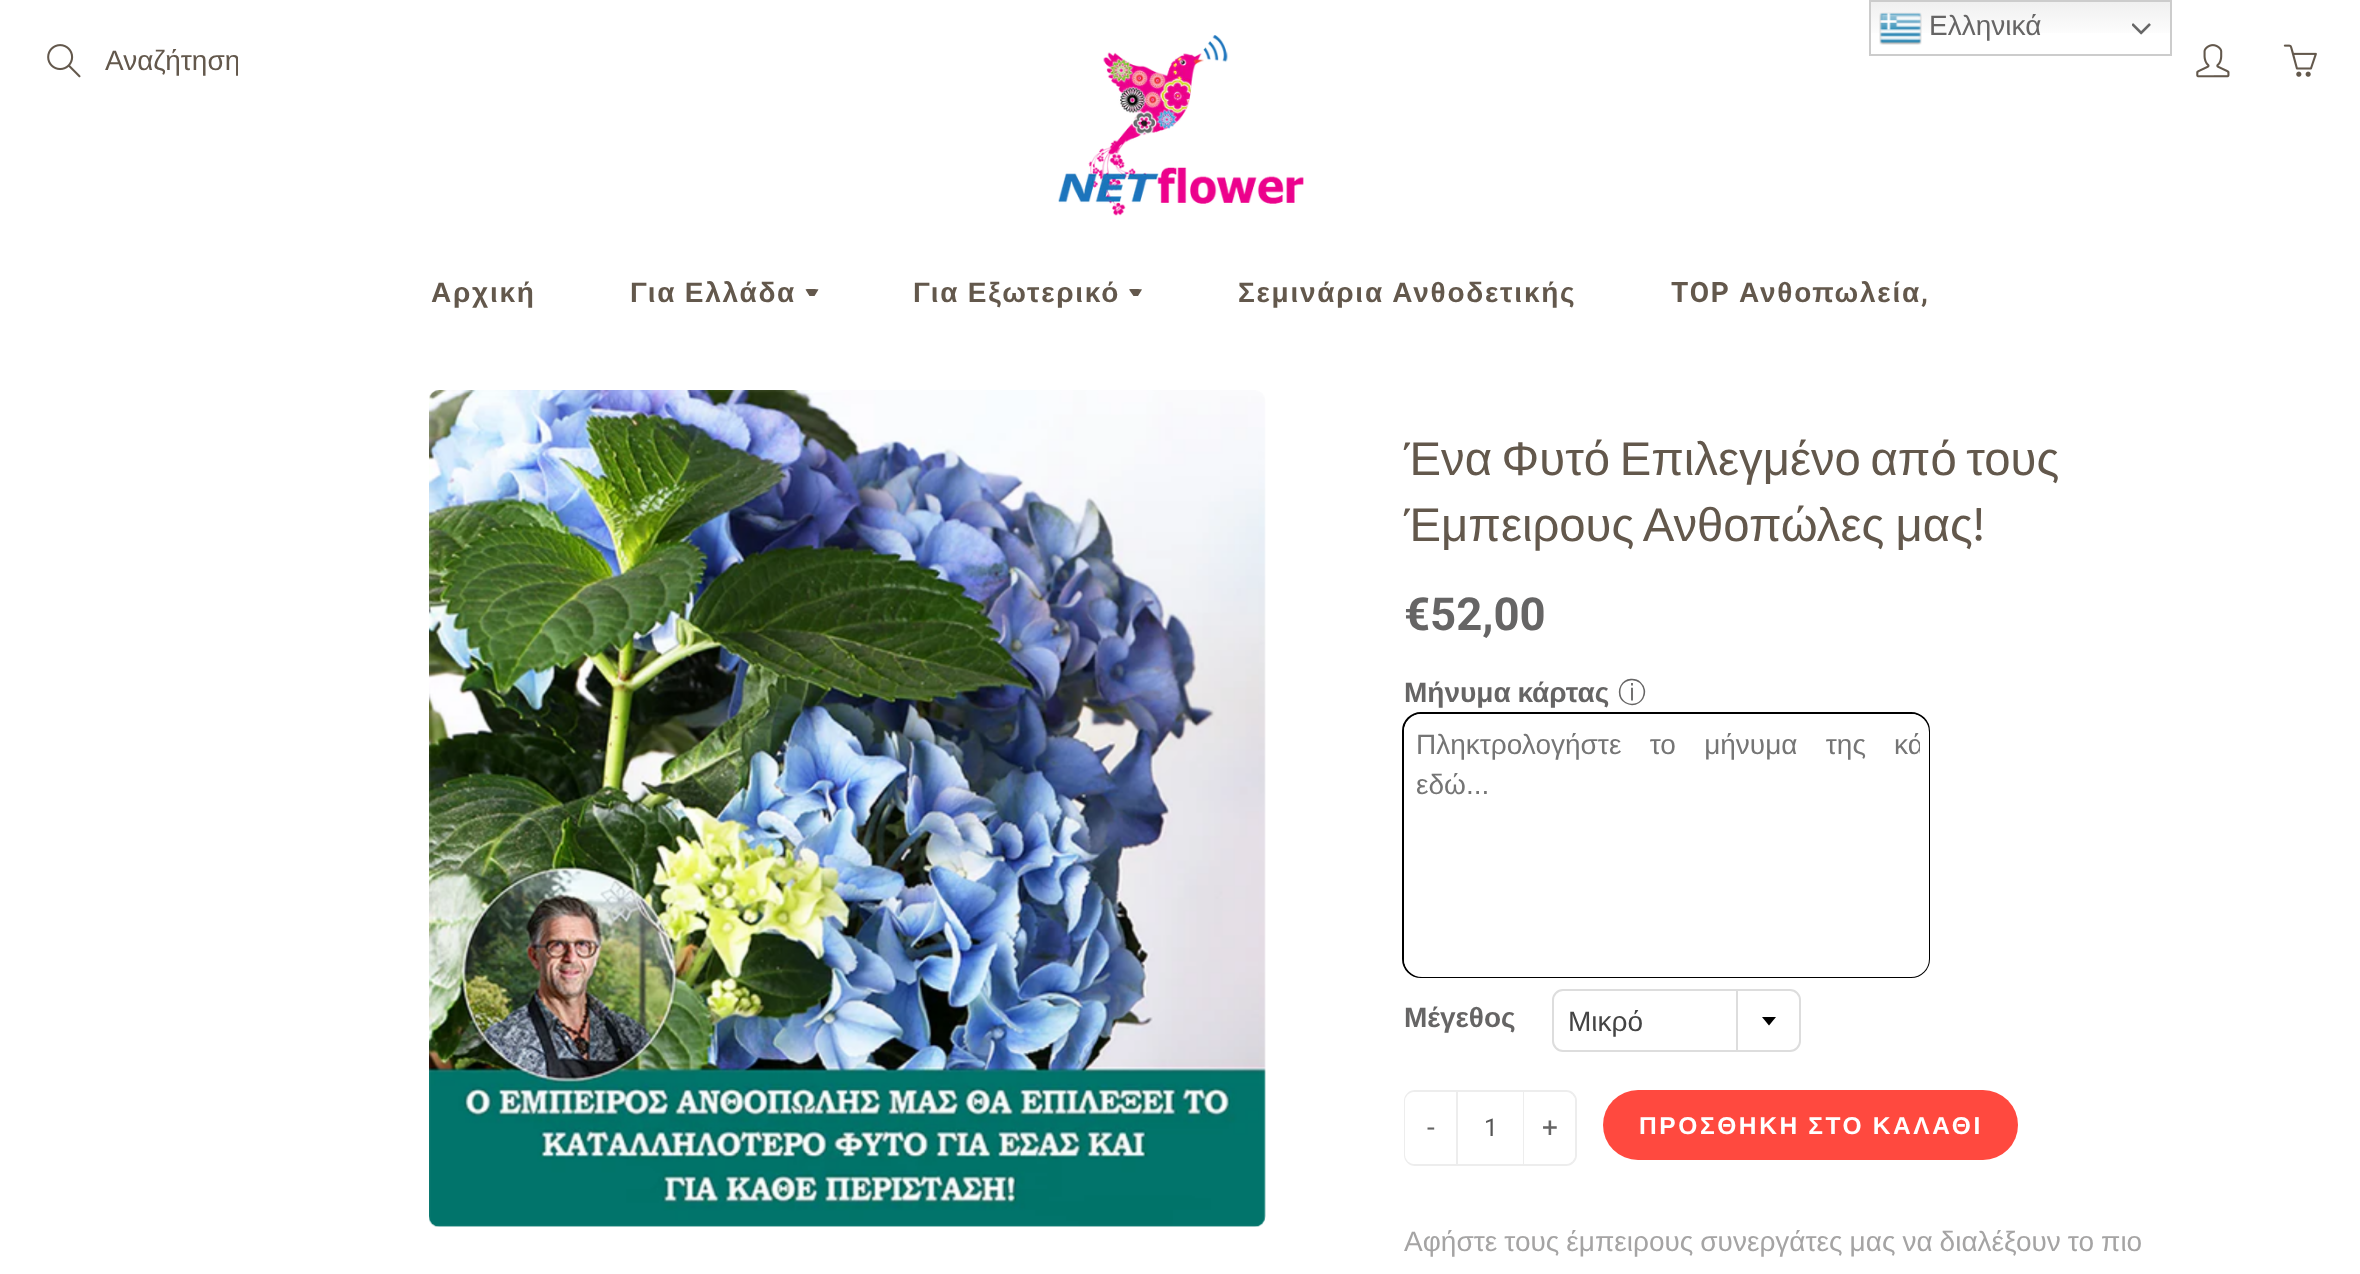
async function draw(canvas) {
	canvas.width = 2360;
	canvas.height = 1274;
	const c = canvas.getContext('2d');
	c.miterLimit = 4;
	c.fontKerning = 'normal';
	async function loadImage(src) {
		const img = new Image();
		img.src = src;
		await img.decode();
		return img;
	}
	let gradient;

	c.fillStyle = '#fff';
	c.fillRect(0, 0, 2360, 1274);
	gradient = c.createLinearGradient(2020, 0, 2020, 56);
	gradient.addColorStop(0, '#efefef');
	gradient.addColorStop(0.7, '#fff');
	c.fillStyle = gradient;
	c.fillRect(1871, 2, 299, 31);
	c.strokeStyle = '#ccc';
	c.lineWidth = 2;
	c.strokeRect(1870, 1, 301, 54);
	c.drawImage(await loadImage('img1.png'), 1879, 12, 43, 33);
	c.font = '28px Liberation Sans';
	c.fillStyle = '#666565';
	c.fillText('Ελληνικά', 1929, 35);
	c.drawImage(await loadImage('img2.png'), 2132, 23, 19, 12);
	c.drawImage(await loadImage('img3.png'), 47, 44, 34, 34);
	c.save();
	c.beginPath();
	c.rect(105, 44, 133, 33);
	c.clip();
	c.fillStyle = '#63584c';
	c.fillText('Αναζήτηση', 105, 70);
	c.restore();
	c.drawImage(await loadImage('img4.png'), 1058, 35, 246, 181);
	c.drawImage(await loadImage('img5.png'), 2196, 44, 34, 34);
	c.drawImage(await loadImage('img6.png'), 2283, 44, 34, 33);
	c.letterSpacing = '1.75px';
	c.font = 'bold 28px Liberation Sans';
	c.fillStyle = '#63584c';
	c.fillText('Αρχική', 431, 302);
	c.wordSpacing = '-1px';
	c.fillText('Για Ελλάδα', 630, 302);
	c.beginPath();
	c.moveTo(807, 289);
	c.bezierCurveTo(809, 289, 817, 288.5, 818.5, 289.5);
	c.lineTo(814.5, 296);
	c.lineTo(809.5, 296);
	c.lineTo(805.5, 289.5);
	c.closePath();
	c.fill();
	c.fillText('Για Εξωτερικό', 913, 302);
	c.beginPath();
	c.moveTo(1130.5, 289);
	c.bezierCurveTo(1133, 289, 1140, 288.5, 1142, 289.5);
	c.lineTo(1138, 296);
	c.lineTo(1133.5, 296);
	c.lineTo(1129, 289.5);
	c.closePath();
	c.fill();
	c.wordSpacing = '0px';
	c.fillText('Σεμινάρια Ανθοδετικής', 1238, 302);
	c.font = 'bold 28px Roboto';
	c.fillText('TOP', 1671, 302);
	c.font = 'bold 28px Liberation Sans';
	c.fillText('Ανθοπωλεία', 1739, 302);
	c.font = 'bold 28px Roboto';
	c.fillText(',', 1921, 302);
	c.drawImage(await loadImage('img7.png'), 429, 390, 837, 837);
	c.letterSpacing = '0px';
	c.wordSpacing = '-3.5px';
	c.font = '47.25px Liberation Sans';
	c.fillText('Ένα Φυτό Επιλεγμένο από τους', 1404, 475);
	c.wordSpacing = '-2px';
	c.fillText('Έμπειρους Ανθοπώλες μας', 1404, 541);
	c.wordSpacing = '0px';
	c.font = '500 47.25px Barlow';
	c.fillText('!', 1971, 541);
	c.font = 'bold 45.5px Roboto';
	c.fillStyle = '#666565';
	c.fillText('€52,00', 1404, 630);
	c.wordSpacing = '-1px';
	c.font = 'bold 28px Liberation Sans';
	c.fillText('Μήνυμα κάρτας', 1404, 702);
	c.wordSpacing = '0px';
	c.font = '500 28px WenQuanYi Zen Hei';
	c.fillText('ⓘ', 1618, 702);
	c.beginPath();
	c.roundRect(1403, 713, 526, 264, 18);
	c.strokeStyle = '#000';
	c.stroke();
	c.fillStyle = '#fff';
	c.beginPath();
	c.roundRect(1404, 714, 525, 263, 18);
	c.fill();
	c.wordSpacing = '20.5px';
	c.font = '28px Liberation Sans';
	c.fillStyle = '#757575';
	c.fillText('Πληκτρολογήστε το μήνυμα της', 1416, 754);
	c.save();
	c.beginPath();
	c.roundRect(1412, 723, 508, 245, 9);
	c.clip();
	c.wordSpacing = '0px';
	c.fillText('κά', 1894, 754);
	c.restore();
	c.wordSpacing = '0px';
	c.fillText('εδώ...', 1416, 794);
	c.font = 'bold 28px Liberation Sans';
	c.fillStyle = '#666565';
	c.fillText('Μέγεθος', 1404, 1027);
	c.beginPath();
	c.roundRect(1553, 990, 247, 61, 10);
	c.strokeStyle = '#ddd';
	c.stroke();
	c.font = '28px Liberation Sans';
	c.fillStyle = '#444';
	c.fillText('Μικρό', 1568, 1031);
	c.fillStyle = '#ddd';
	c.fillRect(1736, 991, 2, 59);
	c.fillStyle = '#000';
	c.beginPath();
	c.moveTo(1762, 1017);
	c.lineTo(1776, 1017);
	c.lineTo(1769, 1025.5);
	c.closePath();
	c.fill();
	c.beginPath();
	c.roundRect(1405, 1091, 171, 74, 10);
	c.strokeStyle = '#ededed';
	c.stroke();
	c.fillStyle = '#fff';
	c.beginPath();
	c.roundRect(1405, 1092, 51, 72, [9, 0, 0, 9]);
	c.fill();
	c.font = '28px Roboto';
	c.fillStyle = '#666565';
	c.fillText('-', 1427, 1137);
	c.fillStyle = '#ededed';
	c.fillRect(1523, 1092, 1, 72);
	c.fillRect(1456, 1092, 2, 72);
	c.font = '24.5px Roboto';
	c.fillStyle = '#555';
	c.fillText('1', 1484, 1136);
	c.fillStyle = '#fff';
	c.beginPath();
	c.roundRect(1524, 1092, 51, 72, [0, 9, 9, 0]);
	c.fill();
	c.font = '28px Roboto';
	c.fillStyle = '#666565';
	c.fillText('+', 1542, 1137);
	c.fillStyle = '#ff493f';
	c.beginPath();
	c.roundRect(1603, 1090, 415, 70, 35);
	c.fill();
	c.letterSpacing = '2.6px';
	c.wordSpacing = '-1px';
	c.font = 'bold 24.5px Liberation Sans';
	c.fillStyle = '#fff';
	c.fillText('ΠΡΟΣΘΗΚΗ ΣΤΟ ΚΑΛΑΘΙ', 1639, 1134);
	c.letterSpacing = '0px';
	c.wordSpacing = '-0.75px';
	c.font = '28px Liberation Sans';
	c.fillStyle = '#a5a4a4';
	c.fillText('Αφήστε τους έμπειρους συνεργάτες μας να διαλέξουν το πιο', 1404, 1251);
}

draw(document.querySelector('canvas'));
